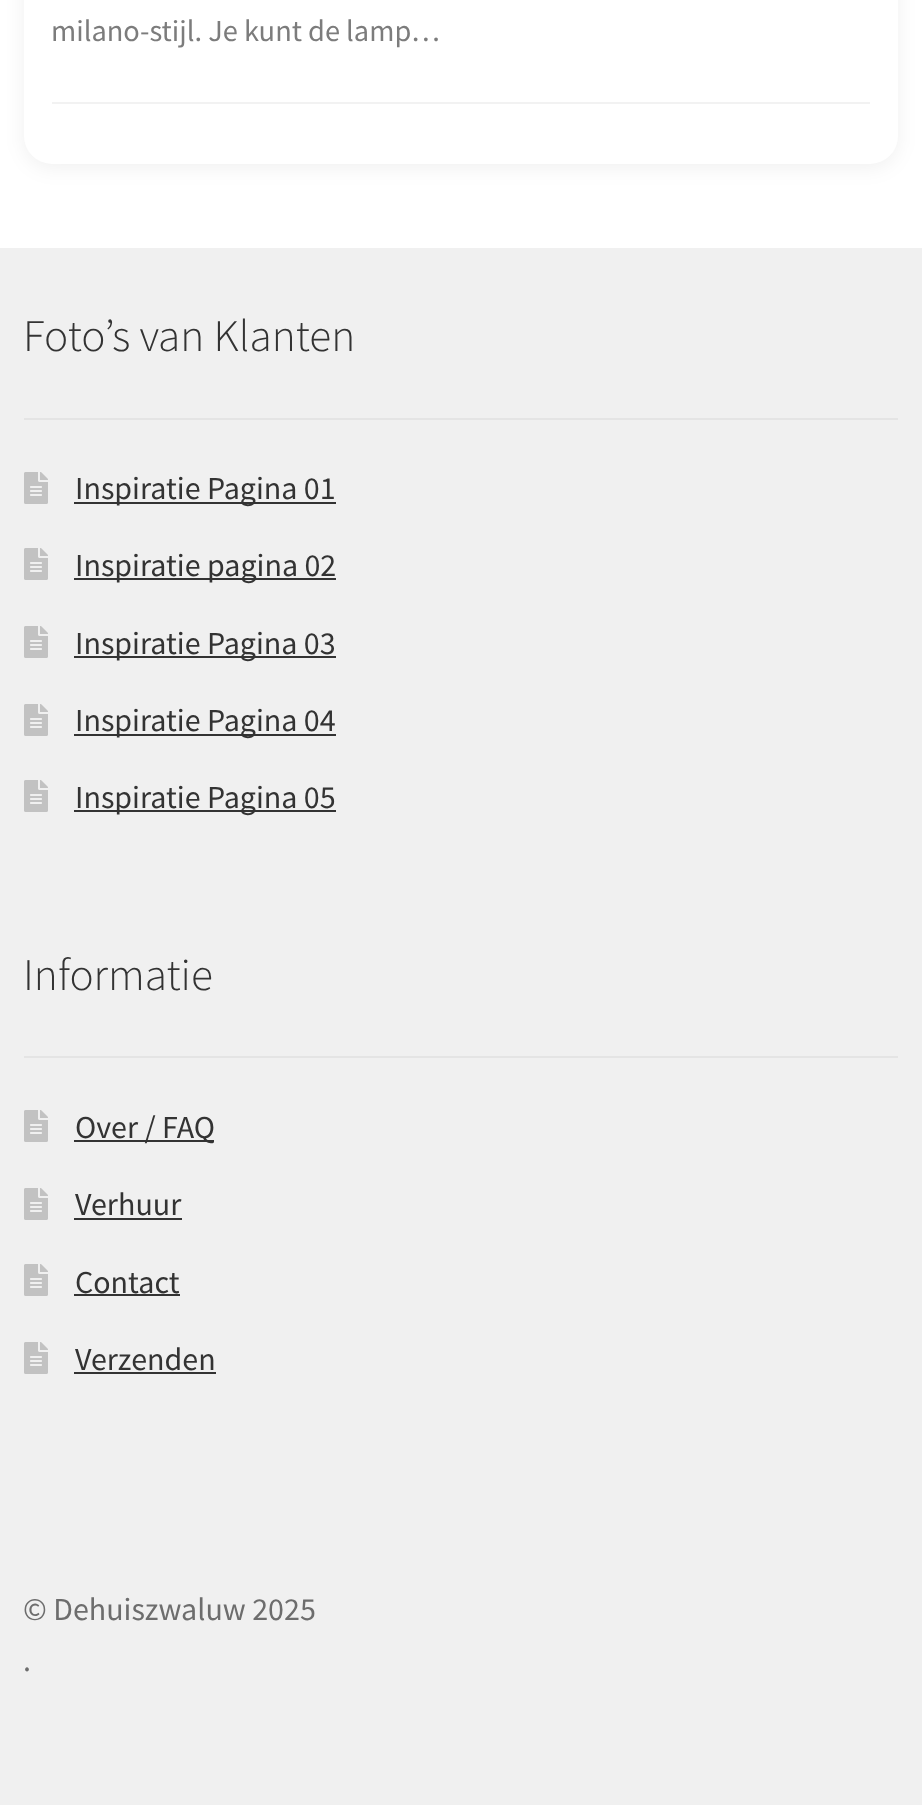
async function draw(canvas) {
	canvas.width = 922;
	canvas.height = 1805;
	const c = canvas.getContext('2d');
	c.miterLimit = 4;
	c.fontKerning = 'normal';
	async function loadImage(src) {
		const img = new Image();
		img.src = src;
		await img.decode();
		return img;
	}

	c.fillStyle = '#fff';
	c.fillRect(0, 0, 922, 1805);
	c.fillStyle = '#0000000f';
	c.filter = 'blur(10px)';
	c.beginPath();
	c.roundRect(24, -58, 874, 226, 28);
	c.fill();
	c.filter = 'none';
	c.fillStyle = '#fff';
	c.beginPath();
	c.roundRect(24, -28, 874, 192, 28);
	c.fill();
	c.font = '30.4px Source Sans Pro';
	c.fillStyle = '#7c7c7c';
	c.fillText('milano-stijl. Je kunt de lamp…', 51, 41);
	for (const [x, y, w, h, color] of [
		[52, 102, 818, 2, '#f2f2f2'],
		[0, 248, 922, 1557, '#f0f0f0'],
		[24, 418, 874, 2, '#e4e4e4'],
	]) {
		c.fillStyle = color;
		c.fillRect(x, y, w, h);
	}
	c.font = '300 45.25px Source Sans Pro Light';
	c.fillStyle = '#333';
	c.fillText('Foto’s van Klanten', 23, 351);
	c.drawImage(await loadImage('img1.png'), 24, 472, 24, 32);
	c.fillRect(74, 502, 262, 2);
	c.font = '32px Source Sans Pro';
	c.fillText('Inspiratie Pagina 01', 75, 499);
	c.drawImage(await loadImage('img1.png'), 24, 548, 24, 32);
	c.fillRect(74, 578, 262, 2);
	c.fillText('Inspiratie pagina 02', 75, 576);
	c.drawImage(await loadImage('img1.png'), 24, 626, 24, 32);
	c.fillRect(74, 656, 262, 2);
	c.fillText('Inspiratie Pagina 03', 75, 654);
	c.drawImage(await loadImage('img1.png'), 24, 704, 24, 32);
	c.fillRect(74, 734, 262, 2);
	c.fillText('Inspiratie Pagina 04', 75, 731);
	c.drawImage(await loadImage('img1.png'), 24, 780, 24, 32);
	c.fillRect(74, 810, 262, 2);
	c.fillText('Inspiratie Pagina 05', 75, 808);
	c.fillStyle = '#e4e4e4';
	c.fillRect(24, 1056, 874, 2);
	c.font = '300 45.25px Source Sans Pro Light';
	c.fillStyle = '#333';
	c.fillText('Informatie', 23, 990);
	c.drawImage(await loadImage('img1.png'), 24, 1110, 24, 32);
	c.fillRect(74, 1140, 140, 2);
	c.font = '32px Source Sans Pro';
	c.fillText('Over / FAQ', 75, 1138);
	c.drawImage(await loadImage('img1.png'), 24, 1188, 24, 32);
	c.fillText('Verhuur', 75, 1215);
	c.fillRect(74, 1218, 108, 2);
	c.drawImage(await loadImage('img1.png'), 24, 1264, 24, 32);
	c.fillText('Contact', 75, 1293);
	c.fillRect(74, 1294, 106, 2);
	c.drawImage(await loadImage('img1.png'), 24, 1342, 24, 32);
	c.fillText('Verzenden', 75, 1370);
	c.fillRect(74, 1372, 142, 2);
	c.fillStyle = '#6d6d6d';
	c.fillText('© Dehuiszwaluw 2025', 23, 1620);
	c.fillText('.', 23, 1671);
}

draw(document.querySelector('canvas'));
